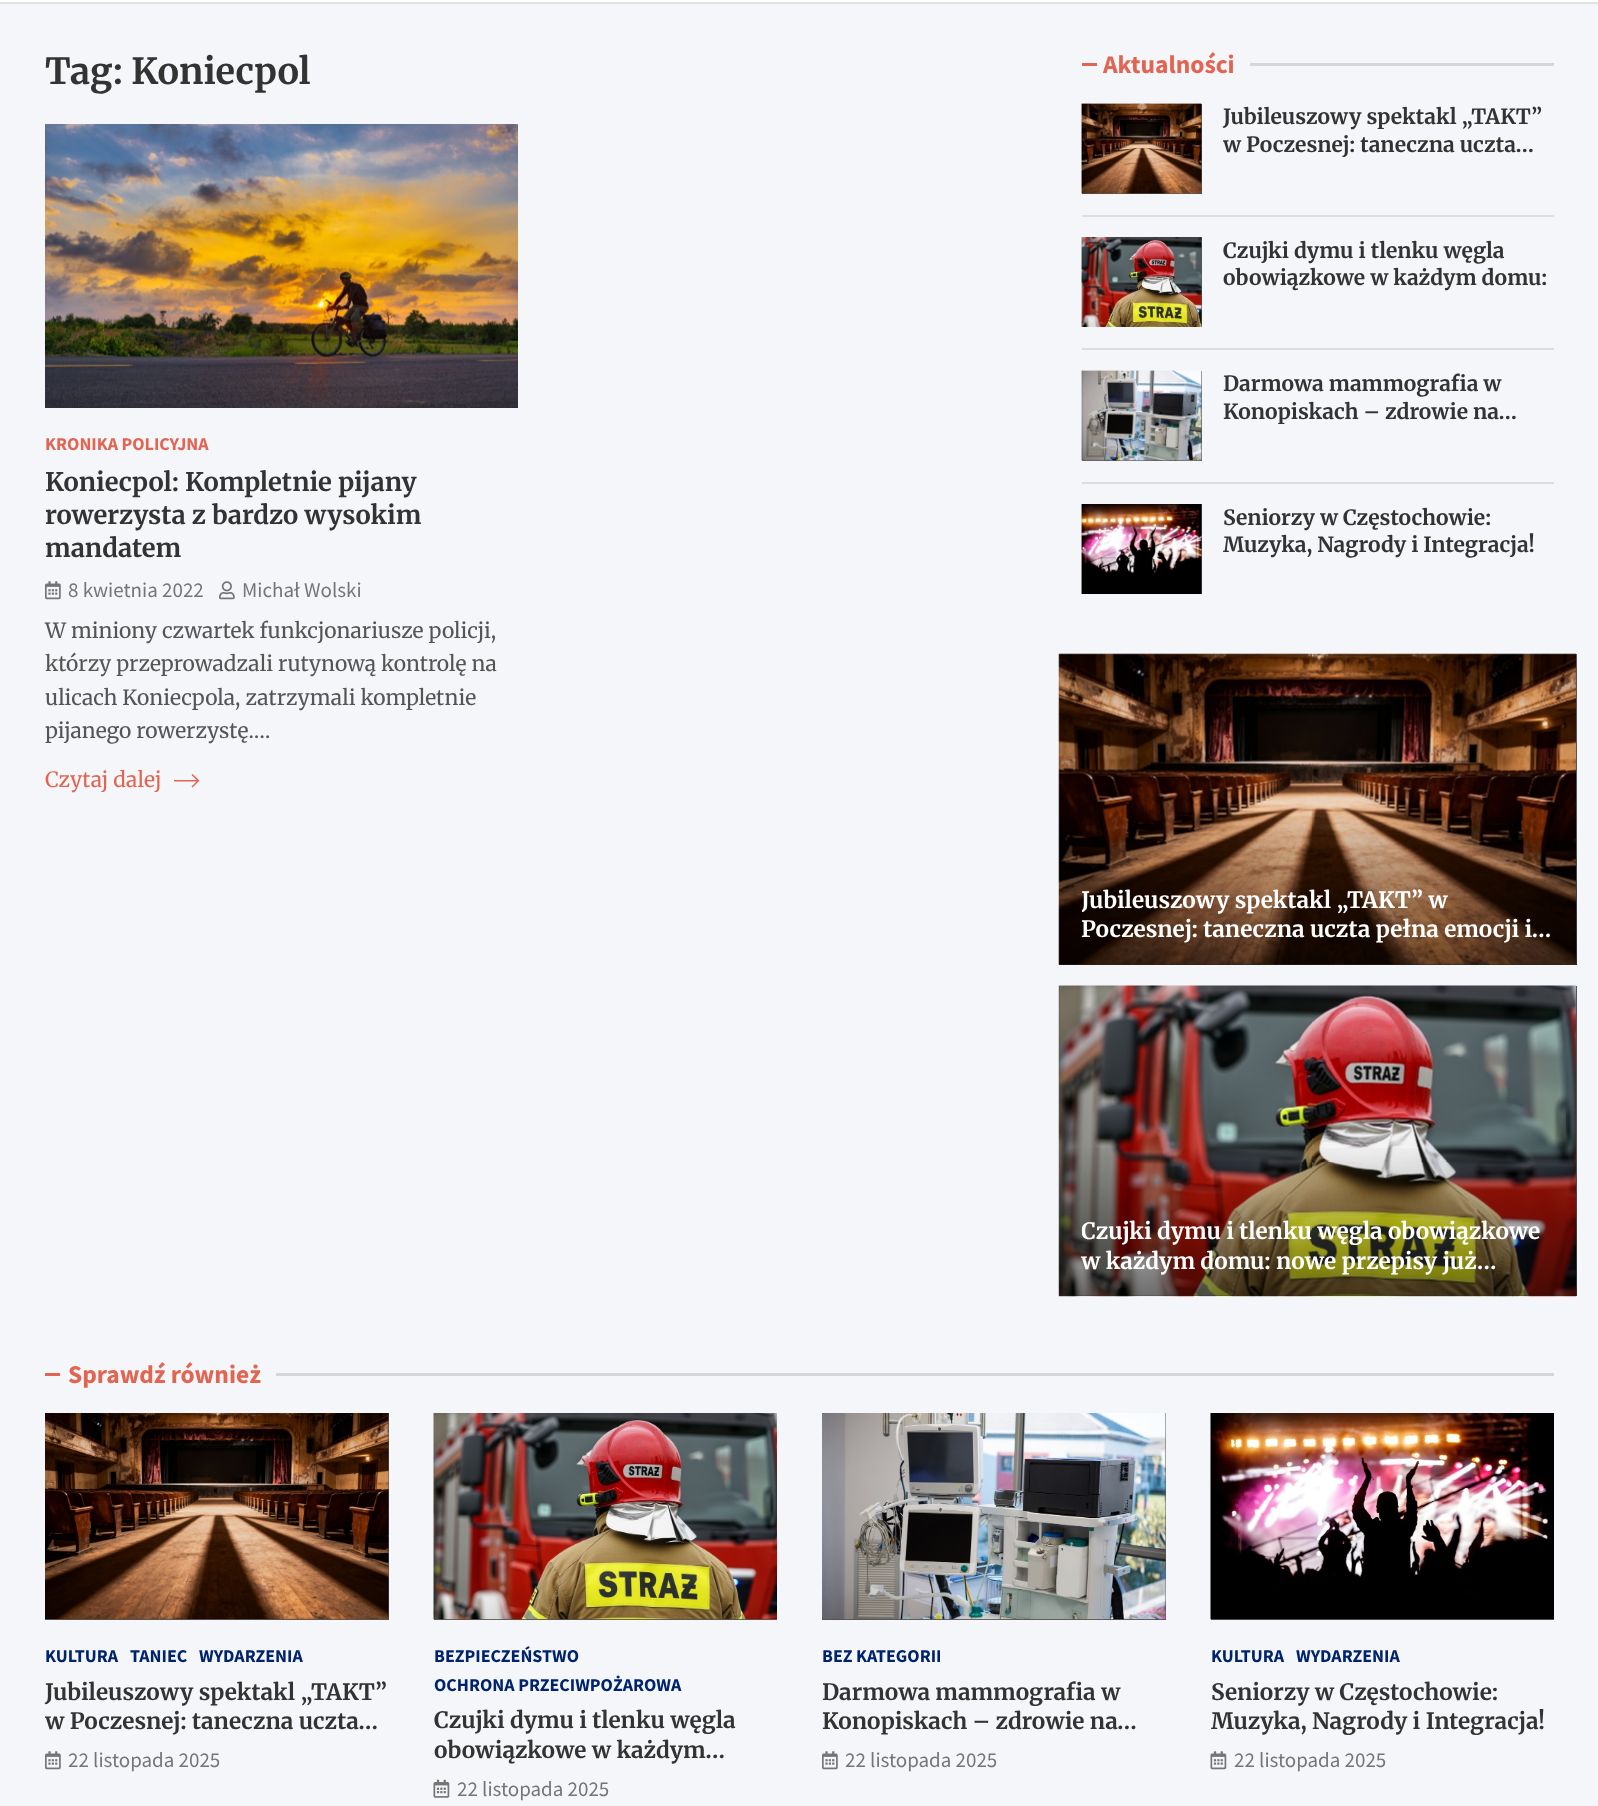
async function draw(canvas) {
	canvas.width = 1598;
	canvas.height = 1806;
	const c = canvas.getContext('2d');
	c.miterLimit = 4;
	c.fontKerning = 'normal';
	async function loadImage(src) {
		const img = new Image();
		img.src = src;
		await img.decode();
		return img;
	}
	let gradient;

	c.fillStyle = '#f4f6f9';
	c.fillRect(0, 0, 1598, 1806);
	for (const [x, y, w, h, color] of [
		[0, 3, 1598, 1, '#dcdde0'],
		[0, 0, 1598, 2, '#fff'],
		[0, 2, 1598, 1, '#e6e6e6'],
	]) {
		c.fillStyle = color;
		c.fillRect(x, y, w, h);
	}
	c.font = 'bold 36px Merriweather';
	c.fillStyle = '#333';
	c.fillText('Tag: Koniecpol', 45, 84);
	c.drawImage(await loadImage('img1.png'), 45, 124, 473, 284);
	c.font = 'bold 18px Source Sans Pro';
	c.fillStyle = '#e26552';
	c.fillText('KRONIKA POLICYJNA', 45, 450);
	c.font = 'bold 25.5px Merriweather';
	c.fillStyle = '#333';
	for (const [text, x, y] of [
		['Koniecpol: Kompletnie pijany', 45, 491],
		['rowerzysta z bardzo wysokim', 45, 524],
		['mandatem', 45, 557],
	]) {
		c.fillText(text, x, y);
	}
	c.drawImage(await loadImage('img2.png'), 45, 581, 16, 19);
	c.font = '21px Source Sans Pro';
	c.fillStyle = '#757576';
	c.fillText('8 kwietnia 2022', 68, 597);
	c.drawImage(await loadImage('img3.png'), 219, 581, 16, 19);
	c.fillText('Michał Wolski', 242, 597);
	c.font = '21px Merriweather';
	c.fillStyle = '#555';
	for (const [text, x, y] of [
		['W miniony czwartek funkcjonariusze policji,', 45, 638],
		['którzy przeprowadzali rutynową kontrolę na', 45, 671],
		['ulicach Koniecpola, zatrzymali kompletnie', 45, 705],
		['pijanego rowerzystę.…', 45, 738],
	]) {
		c.fillText(text, x, y);
	}
	c.fillStyle = '#e26552';
	c.fillText('Czytaj dalej', 45, 787);
	c.beginPath();
	c.moveTo(192.5, 774);
	c.lineTo(191.5, 775);
	c.lineTo(196.5, 780);
	c.lineTo(174, 780);
	c.lineTo(174, 781.5);
	c.lineTo(196.5, 781.5);
	c.lineTo(191.5, 786.5);
	c.lineTo(192.5, 787.5);
	c.lineTo(199.5, 780.5);
	c.closePath();
	c.fill();
	c.fillRect(1082, 63, 15, 3);
	c.font = 'bold 25.5px Source Sans Pro';
	c.fillText('Aktualności', 1103, 73);
	c.fillStyle = '#d4d6d8';
	c.fillRect(1250, 63, 304, 3);
	c.fillStyle = '#555';
	c.fillRect(1082, 104, 120, 90);
	c.drawImage(await loadImage('img4.png'), 1081, 103, 121, 91);
	c.font = 'bold 21px Merriweather';
	c.fillStyle = '#333';
	c.fillText('Jubileuszowy spektakl „TAKT”', 1223, 124);
	c.fillText('w Poczesnej: taneczna uczta…', 1223, 152);
	c.fillStyle = '#dcdde0';
	c.fillRect(1082, 215, 472, 2);
	c.fillStyle = '#555';
	c.fillRect(1201, 237, 1, 90);
	c.drawImage(await loadImage('img5.png'), 1081, 237, 121, 90);
	c.fillStyle = '#333';
	c.fillText('Czujki dymu i tlenku węgla', 1223, 258);
	c.fillText('obowiązkowe w każdym domu:', 1223, 285);
	c.fillStyle = '#dcdde0';
	c.fillRect(1082, 348, 472, 2);
	c.fillStyle = '#555';
	c.fillRect(1082, 371, 120, 90);
	c.drawImage(await loadImage('img6.png'), 1081, 370, 121, 91);
	c.fillStyle = '#333';
	c.fillText('Darmowa mammografia w', 1223, 391);
	c.fillText('Konopiskach – zdrowie na…', 1223, 419);
	c.fillStyle = '#dcdde0';
	c.fillRect(1082, 482, 472, 2);
	c.fillStyle = '#555';
	c.fillRect(1201, 504, 1, 90);
	c.drawImage(await loadImage('img7.png'), 1081, 504, 121, 90);
	c.fillStyle = '#333';
	c.fillText('Seniorzy w Częstochowie:', 1223, 525);
	c.fillText('Muzyka, Nagrody i Integracja!', 1223, 552);
	c.fillStyle = '#555';
	c.fillRect(1059, 654, 518, 311);
	c.drawImage(await loadImage('img8.png'), 1058, 653, 518, 312);
	gradient = c.createLinearGradient(1318, 654, 1318, 965);
	gradient.addColorStop(0.5, '#00000000');
	gradient.addColorStop(1, '#00000080');
	c.fillStyle = gradient;
	c.fillRect(1059, 816, 518, 149);
	c.save();
	c.beginPath();
	c.rect(1082, 885, 472, 59);
	c.clip();
	c.font = 'bold 22.5px Merriweather';
	c.fillStyle = '#fff';
	c.fillText('Jubileuszowy spektakl „TAKT” w', 1081, 908);
	c.restore();
	c.font = 'bold 22.5px Merriweather';
	c.fillStyle = '#fff';
	c.fillText('Poczesnej: taneczna uczta pełna emocji i…', 1081, 937);
	c.fillStyle = '#555';
	c.fillRect(1059, 986, 518, 310);
	c.drawImage(await loadImage('img9.png'), 1058, 985, 518, 312);
	gradient = c.createLinearGradient(1318, 986, 1318, 1296);
	gradient.addColorStop(0.5, '#00000000');
	gradient.addColorStop(1, '#00000080');
	c.fillStyle = gradient;
	c.fillRect(1059, 1148, 518, 148);
	c.save();
	c.beginPath();
	c.rect(1082, 1217, 472, 58);
	c.clip();
	c.fillStyle = '#fff';
	c.fillText('Czujki dymu i tlenku węgla obowiązkowe', 1081, 1239);
	c.restore();
	c.fillStyle = '#fff';
	c.fillText('w każdym domu: nowe przepisy już…', 1081, 1269);
	c.fillStyle = '#e26552';
	c.fillRect(45, 1373, 15, 3);
	c.font = 'bold 25.5px Source Sans Pro';
	c.fillText('Sprawdź również', 68, 1383);
	c.fillStyle = '#d4d6d8';
	c.fillRect(276, 1373, 1278, 3);
	c.fillStyle = '#555';
	c.fillRect(45, 1413, 344, 207);
	c.drawImage(await loadImage('img10.png'), 45, 1413, 344, 207);
	c.font = 'bold 18px Source Sans Pro';
	c.fillStyle = '#00236e';
	for (const [text, x, y] of [
		['KULTURA', 45, 1662],
		['TANIEC', 130, 1662],
		['WYDARZENIA', 199, 1662],
	]) {
		c.fillText(text, x, y);
	}
	c.font = 'bold 22.5px Merriweather';
	c.fillStyle = '#333';
	c.fillText('Jubileuszowy spektakl „TAKT”', 45, 1700);
	c.fillText('w Poczesnej: taneczna uczta…', 45, 1729);
	c.drawImage(await loadImage('img2.png'), 45, 1751, 16, 19);
	c.font = '21px Source Sans Pro';
	c.fillStyle = '#757576';
	c.fillText('22 listopada 2025', 68, 1767);
	c.fillStyle = '#555';
	c.fillRect(434, 1619, 343, 1);
	c.drawImage(await loadImage('img11.png'), 433, 1413, 344, 207);
	c.font = 'bold 18px Source Sans Pro';
	c.fillStyle = '#00236e';
	c.fillText('BEZPIECZEŃSTWO', 434, 1662);
	c.fillText('OCHRONA PRZECIWPOŻAROWA', 434, 1691);
	c.font = 'bold 22.5px Merriweather';
	c.fillStyle = '#333';
	c.fillText('Czujki dymu i tlenku węgla', 434, 1728);
	c.fillText('obowiązkowe w każdym…', 434, 1758);
	c.drawImage(await loadImage('img12.png'), 433, 1779, 17, 19);
	c.font = '21px Source Sans Pro';
	c.fillStyle = '#757576';
	c.fillText('22 listopada 2025', 457, 1796);
	c.fillStyle = '#555';
	c.fillRect(822, 1413, 344, 207);
	c.drawImage(await loadImage('img13.png'), 822, 1413, 344, 207);
	c.font = 'bold 18px Source Sans Pro';
	c.fillStyle = '#00236e';
	c.fillText('BEZ KATEGORII', 822, 1662);
	c.font = 'bold 22.5px Merriweather';
	c.fillStyle = '#333';
	c.fillText('Darmowa mammografia w', 822, 1700);
	c.fillText('Konopiskach – zdrowie na…', 822, 1729);
	c.drawImage(await loadImage('img2.png'), 822, 1751, 16, 19);
	c.font = '21px Source Sans Pro';
	c.fillStyle = '#757576';
	c.fillText('22 listopada 2025', 845, 1767);
	c.fillStyle = '#555';
	c.fillRect(1211, 1619, 343, 1);
	c.drawImage(await loadImage('img14.png'), 1210, 1413, 344, 207);
	c.font = 'bold 18px Source Sans Pro';
	c.fillStyle = '#00236e';
	c.fillText('KULTURA', 1211, 1662);
	c.fillText('WYDARZENIA', 1296, 1662);
	c.font = 'bold 22.5px Merriweather';
	c.fillStyle = '#333';
	c.fillText('Seniorzy w Częstochowie:', 1211, 1700);
	c.fillText('Muzyka, Nagrody i Integracja!', 1211, 1729);
	c.drawImage(await loadImage('img15.png'), 1210, 1751, 17, 19);
	c.font = '21px Source Sans Pro';
	c.fillStyle = '#757576';
	c.fillText('22 listopada 2025', 1234, 1767);
}

draw(document.querySelector('canvas'));
